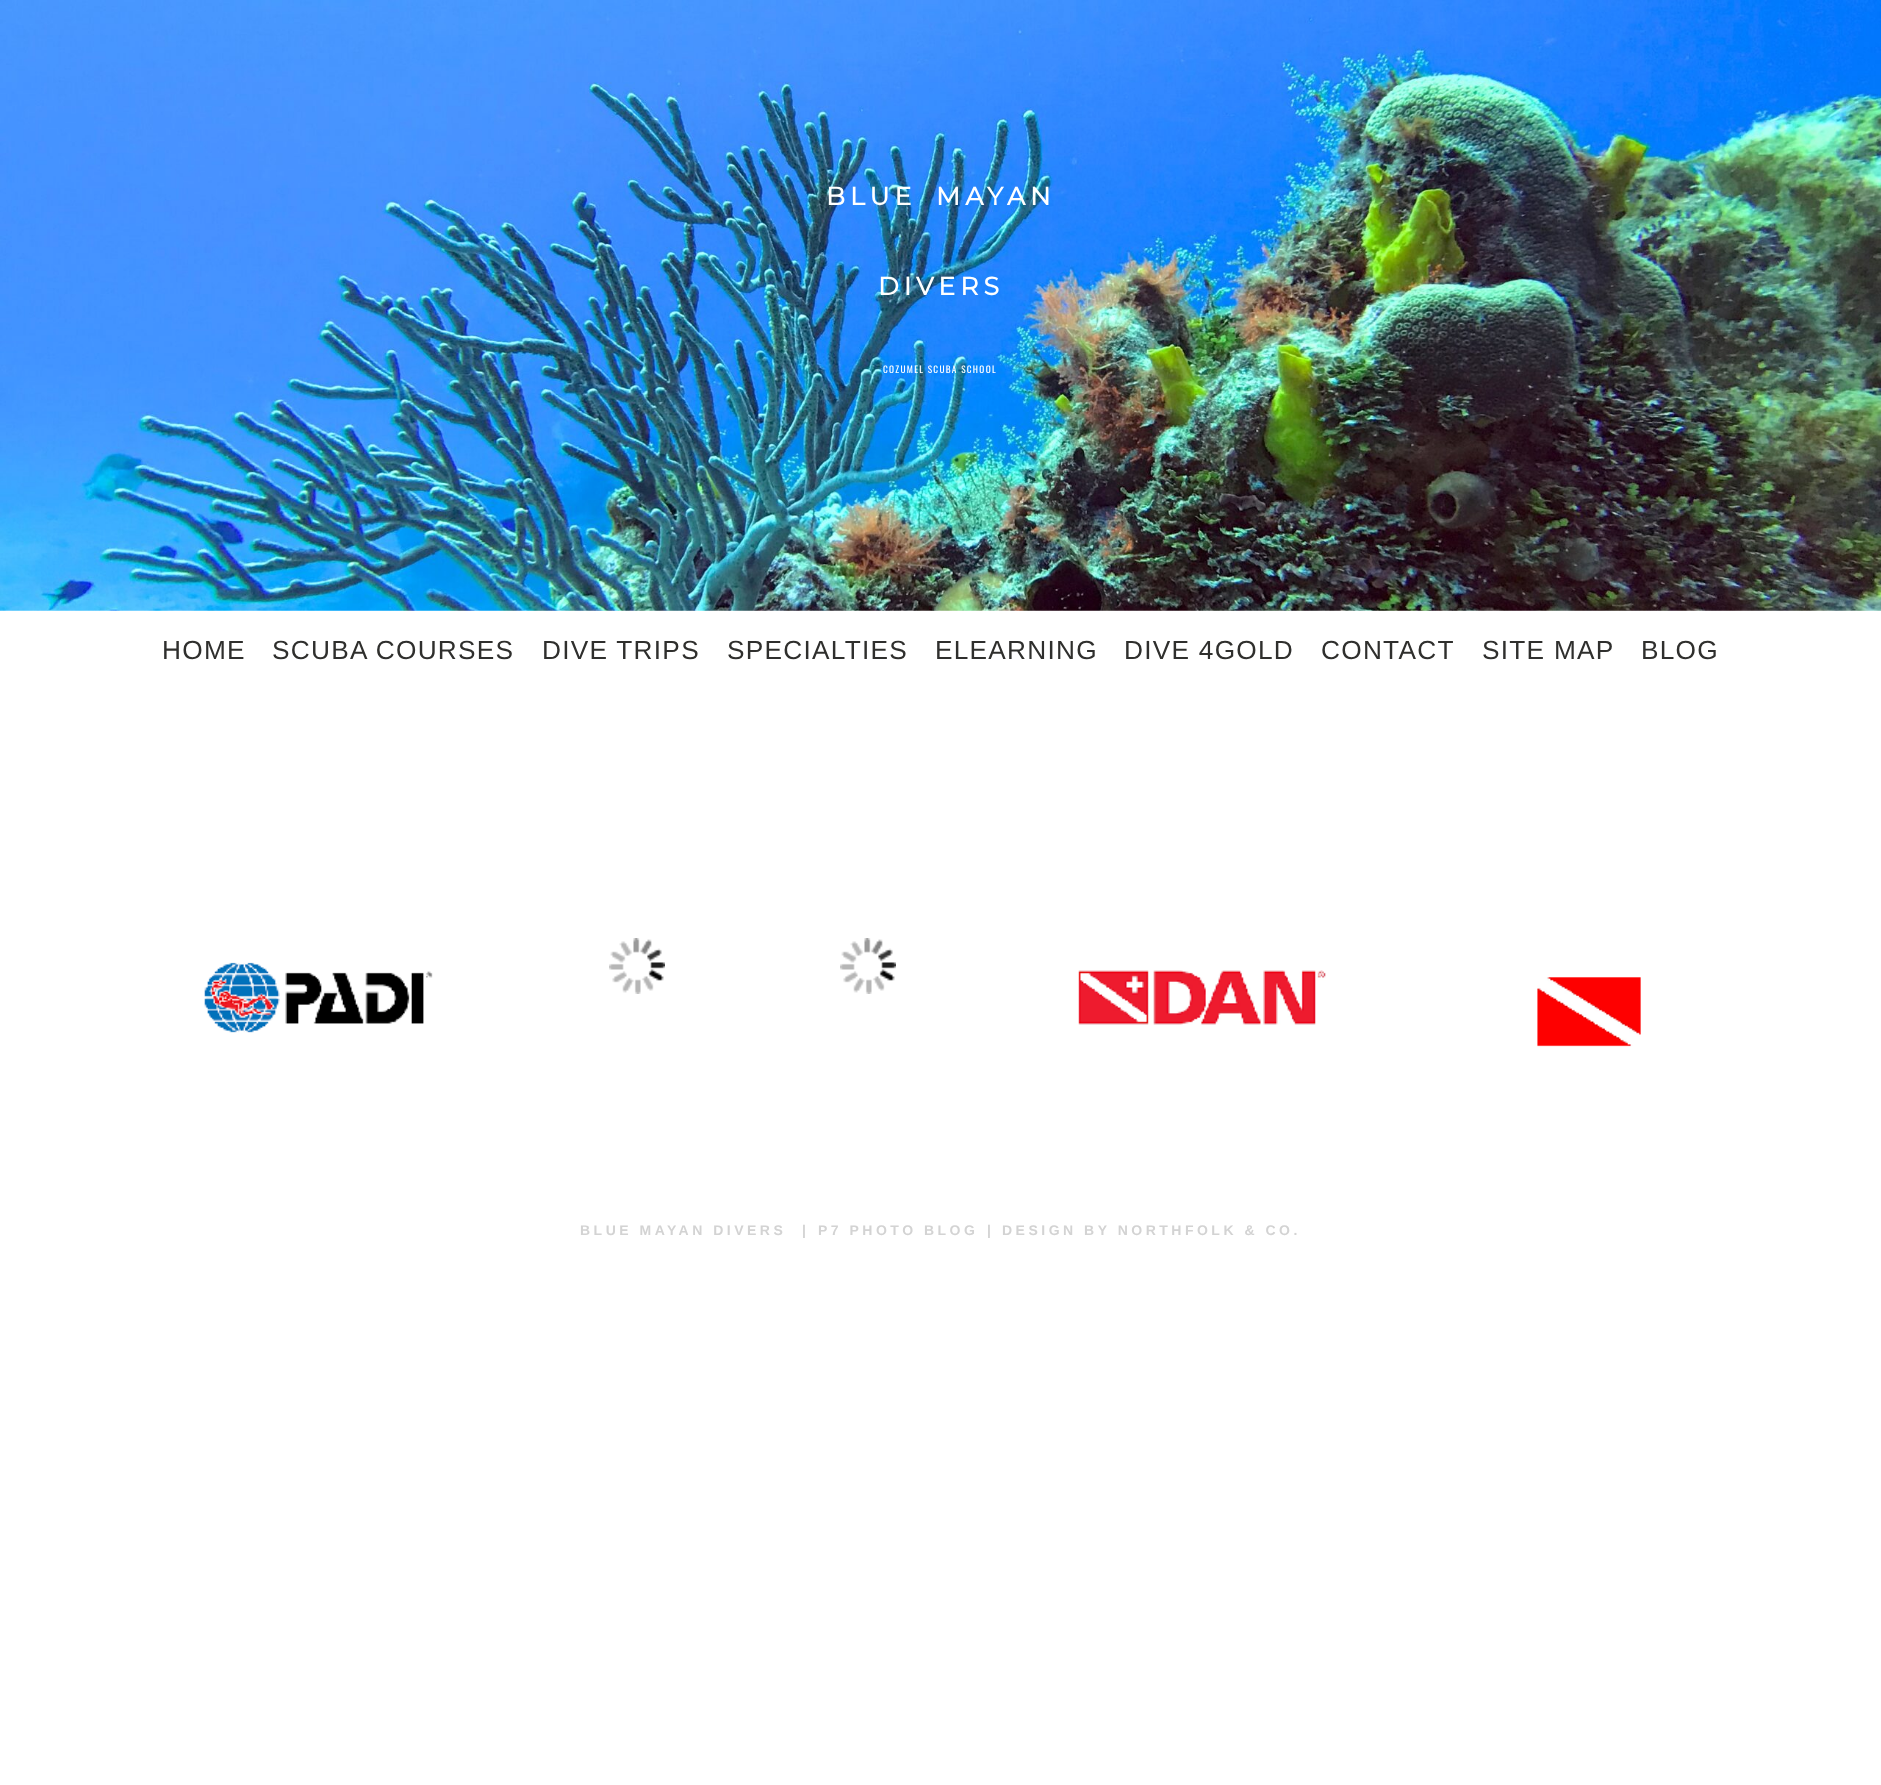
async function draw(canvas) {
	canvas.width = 1881;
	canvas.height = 1785;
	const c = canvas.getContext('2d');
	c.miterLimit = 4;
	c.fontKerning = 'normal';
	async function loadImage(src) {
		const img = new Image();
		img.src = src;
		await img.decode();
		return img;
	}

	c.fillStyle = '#fff';
	c.fillRect(0, 0, 1881, 1785);
	c.drawImage(await loadImage('img1.png'), 0, 0, 1881, 611);
	c.letterSpacing = '5px';
	c.wordSpacing = '8px';
	c.font = 'bold 25.25px Montserrat';
	c.fillText('BLUE MAYAN', 826, 205);
	c.wordSpacing = '0px';
	c.fillText('DIVERS', 878, 295);
	c.letterSpacing = '1.3px';
	c.font = '9.25px Oswald';
	c.fillText('COZUMEL SCUBA SCHOOL', 883, 373);
	c.letterSpacing = '1.25px';
	c.font = '26.25px Liberation Sans';
	c.fillStyle = '#2f2f2d';
	for (const [text, x, y] of [
		['HOME', 162, 659],
		['SCUBA COURSES', 272, 659],
		['DIVE TRIPS', 542, 659],
		['SPECIALTIES', 727, 659],
		['ELEARNING', 935, 659],
		['DIVE 4GOLD', 1124, 659],
		['CONTACT', 1321, 659],
		['SITE MAP', 1482, 659],
		['BLOG', 1641, 659],
	]) {
		c.fillText(text, x, y);
	}
	c.drawImage(await loadImage('img2.png'), 204, 962, 229, 71);
	c.drawImage(await loadImage('img3.png'), 609, 938, 56, 56);
	c.drawImage(await loadImage('img3.png'), 840, 938, 56, 56);
	c.drawImage(await loadImage('img4.png'), 1078, 970, 248, 55);
	c.drawImage(await loadImage('img5.png'), 1537, 977, 104, 70);
	c.letterSpacing = '3.5px';
	c.font = 'bold 14px Liberation Sans';
	c.fillStyle = '#d3d3d3';
	for (const [text, x, y] of [
		['BLUE MAYAN DIVERS', 580, 1235],
		['|', 802, 1235],
		['P7 PHOTO BLOG', 818, 1235],
		['|', 987, 1235],
		['DESIGN BY NORTHFOLK & CO.', 1002, 1235],
	]) {
		c.fillText(text, x, y);
	}
}

draw(document.querySelector('canvas'));
